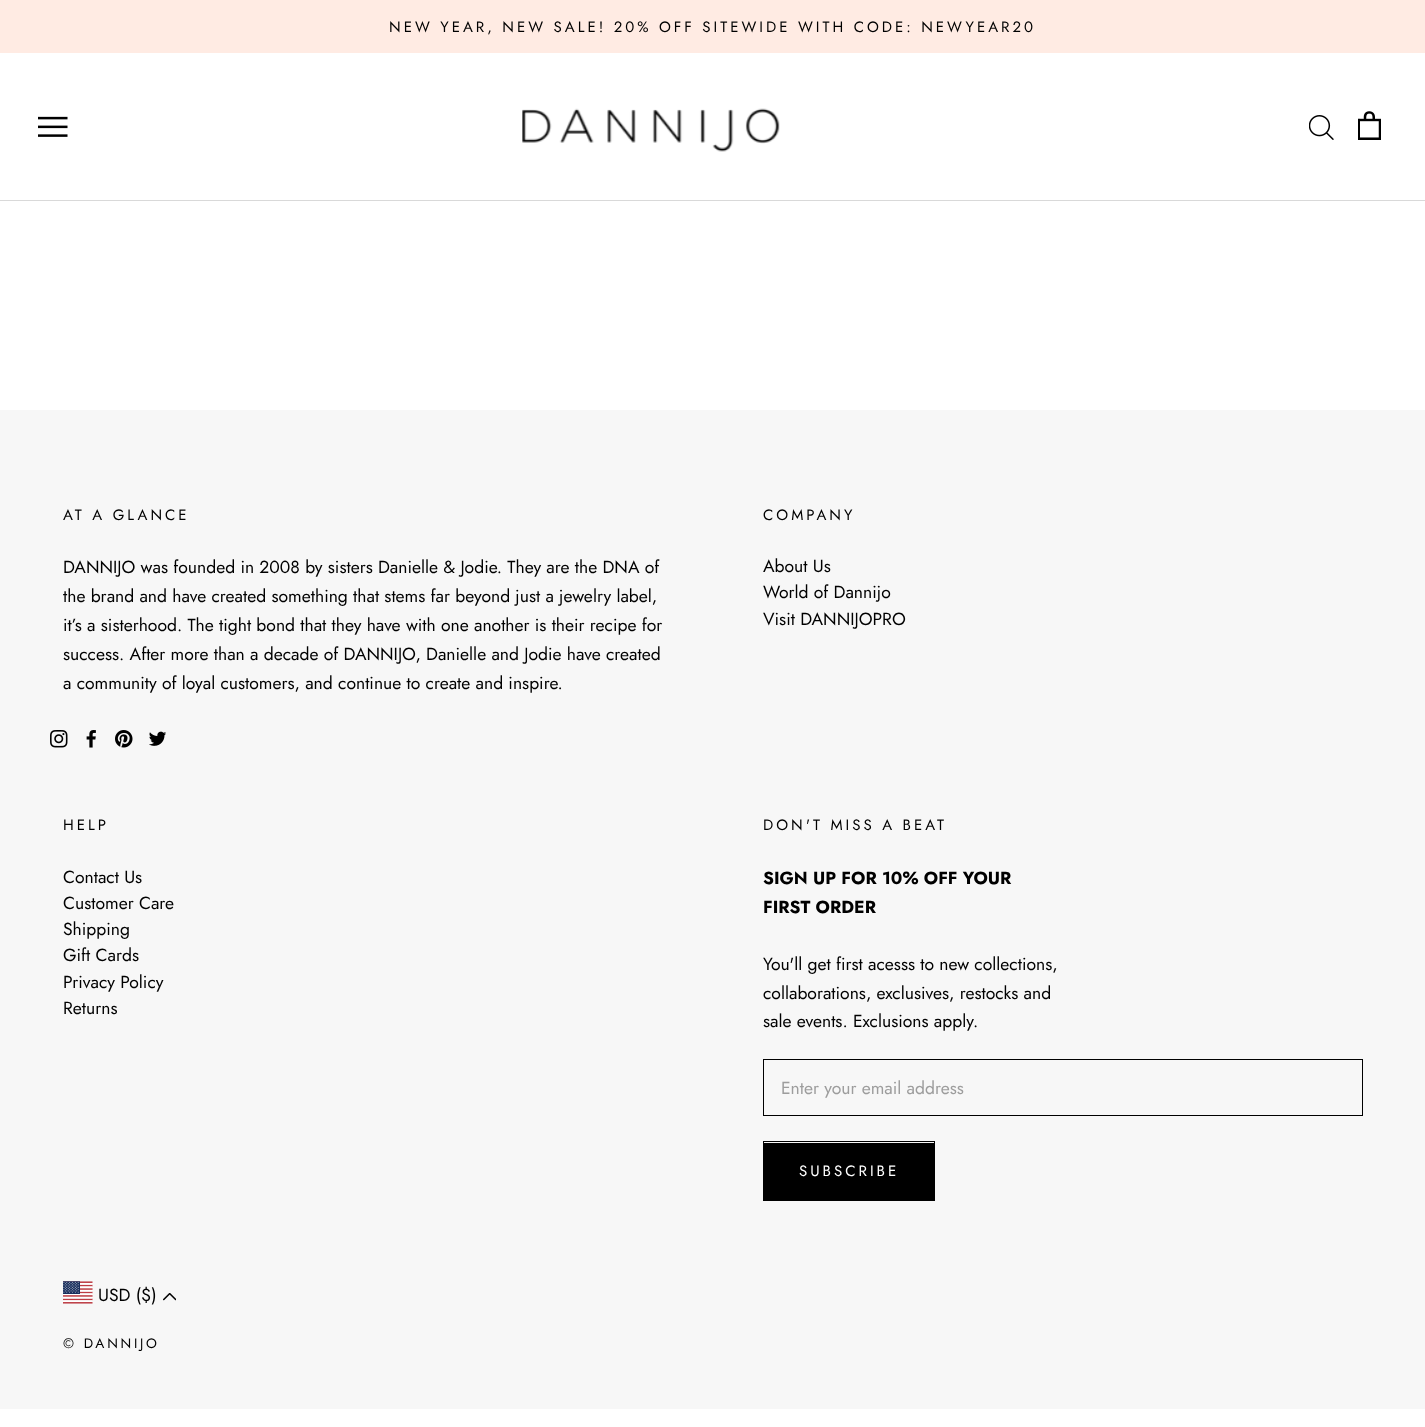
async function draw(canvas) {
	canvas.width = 1425;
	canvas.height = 1427;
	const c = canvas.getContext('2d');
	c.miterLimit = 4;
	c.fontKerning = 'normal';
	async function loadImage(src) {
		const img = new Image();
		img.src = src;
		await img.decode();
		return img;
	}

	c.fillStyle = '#fff';
	c.fillRect(0, 0, 1425, 1427);
	c.fillStyle = '#ffebe3';
	c.fillRect(0, 0, 1425, 53);
	c.letterSpacing = '3px';
	c.font = '15px Jost';
	c.fillStyle = '#000';
	c.fillText('NEW YEAR, NEW SALE! 20% OFF SITEWIDE WITH CODE: NEWYEAR20', 389, 32);
	c.fillStyle = '#d9d9d9';
	c.fillRect(0, 200, 1425, 1);
	c.drawImage(await loadImage('img1.png'), 38, 116, 30, 21);
	c.drawImage(await loadImage('img2.png'), 522, 108, 258, 44);
	c.drawImage(await loadImage('img3.png'), 1309, 115, 25, 25);
	c.drawImage(await loadImage('img4.png'), 1358, 111, 23, 29);
	c.fillStyle = '#f7f7f7';
	c.fillRect(0, 410, 1425, 999);
	c.fillStyle = '#000';
	c.fillText('AT A GLANCE', 63, 520);
	c.letterSpacing = '0px';
	c.font = '17.5px Jost';
	for (const [text, x, y] of [
		['DANNIJO was founded in 2008 by sisters Danielle & Jodie. They are the DNA of', 63, 573],
		['the brand and have created something that stems far beyond just a jewelry label,', 63, 602],
		['it’s a sisterhood. The tight bond that they have with one another is their recipe for', 63, 631],
		['success. After more than a decade of DANNIJO, Danielle and Jodie have created', 63, 660],
		['a community of loyal customers, and continue to create and inspire.', 63, 689],
	]) {
		c.fillText(text, x, y);
	}
	c.drawImage(await loadImage('img5.png'), 50, 730, 18, 18);
	c.drawImage(await loadImage('img6.png'), 86, 730, 10, 18);
	c.drawImage(await loadImage('img7.png'), 115, 730, 18, 18);
	c.drawImage(await loadImage('img8.png'), 149, 731, 17, 15);
	c.letterSpacing = '3px';
	c.font = '15px Jost';
	c.fillText('COMPANY', 763, 520);
	c.letterSpacing = '0px';
	c.font = '17.5px Jost';
	for (const [text, x, y] of [
		['About Us', 763, 572],
		['World of Dannijo', 763, 598],
		['Visit DANNIJOPRO', 763, 625],
	]) {
		c.fillText(text, x, y);
	}
	c.letterSpacing = '3px';
	c.font = '15px Jost';
	c.fillText('HELP', 63, 830);
	c.letterSpacing = '0px';
	c.font = '17.5px Jost';
	for (const [text, x, y] of [
		['Contact Us', 63, 883],
		['Customer Care', 63, 909],
		['Shipping', 63, 935],
		['Gift Cards', 63, 961],
		['Privacy Policy', 63, 988],
		['Returns', 63, 1014],
	]) {
		c.fillText(text, x, y);
	}
	c.letterSpacing = '3px';
	c.font = '15px Jost';
	c.fillText('DON\'T MISS A BEAT', 763, 830);
	c.letterSpacing = '0px';
	c.font = 'bold 17.5px Jost';
	c.fillText('SIGN UP FOR 10% OFF YOUR', 763, 884);
	c.fillText('FIRST ORDER', 763, 913);
	c.font = '17.5px Jost';
	for (const [text, x, y] of [
		['You\'ll get first acesss to new collections,', 763, 970],
		['collaborations, exclusives, restocks and', 763, 999],
		['sale events. Exclusions apply.', 763, 1027],
	]) {
		c.fillText(text, x, y);
	}
	c.strokeStyle = '#000';
	c.strokeRect(763.5, 1059.5, 599, 56);
	c.fillStyle = '#9d9d9d';
	c.fillText('Enter your email address', 781, 1094);
	c.strokeRect(763.5, 1141.5, 171, 59);
	c.fillStyle = '#000';
	c.fillRect(764, 1143, 170, 57);
	c.letterSpacing = '3px';
	c.font = '15px Jost';
	c.fillStyle = '#fff';
	c.fillText('SUBSCRIBE', 799, 1176);
	c.drawImage(await loadImage('img9.png'), 63, 1281, 30, 23);
	c.letterSpacing = '0px';
	c.font = '17.5px Jost';
	c.fillStyle = '#000';
	c.fillText('USD ($)', 98, 1301);
	c.drawImage(await loadImage('img10.png'), 163, 1293, 13, 8);
	c.letterSpacing = '2.75px';
	c.font = '13.75px Jost';
	c.fillText('© DANNIJO', 63, 1348);
}

draw(document.querySelector('canvas'));
